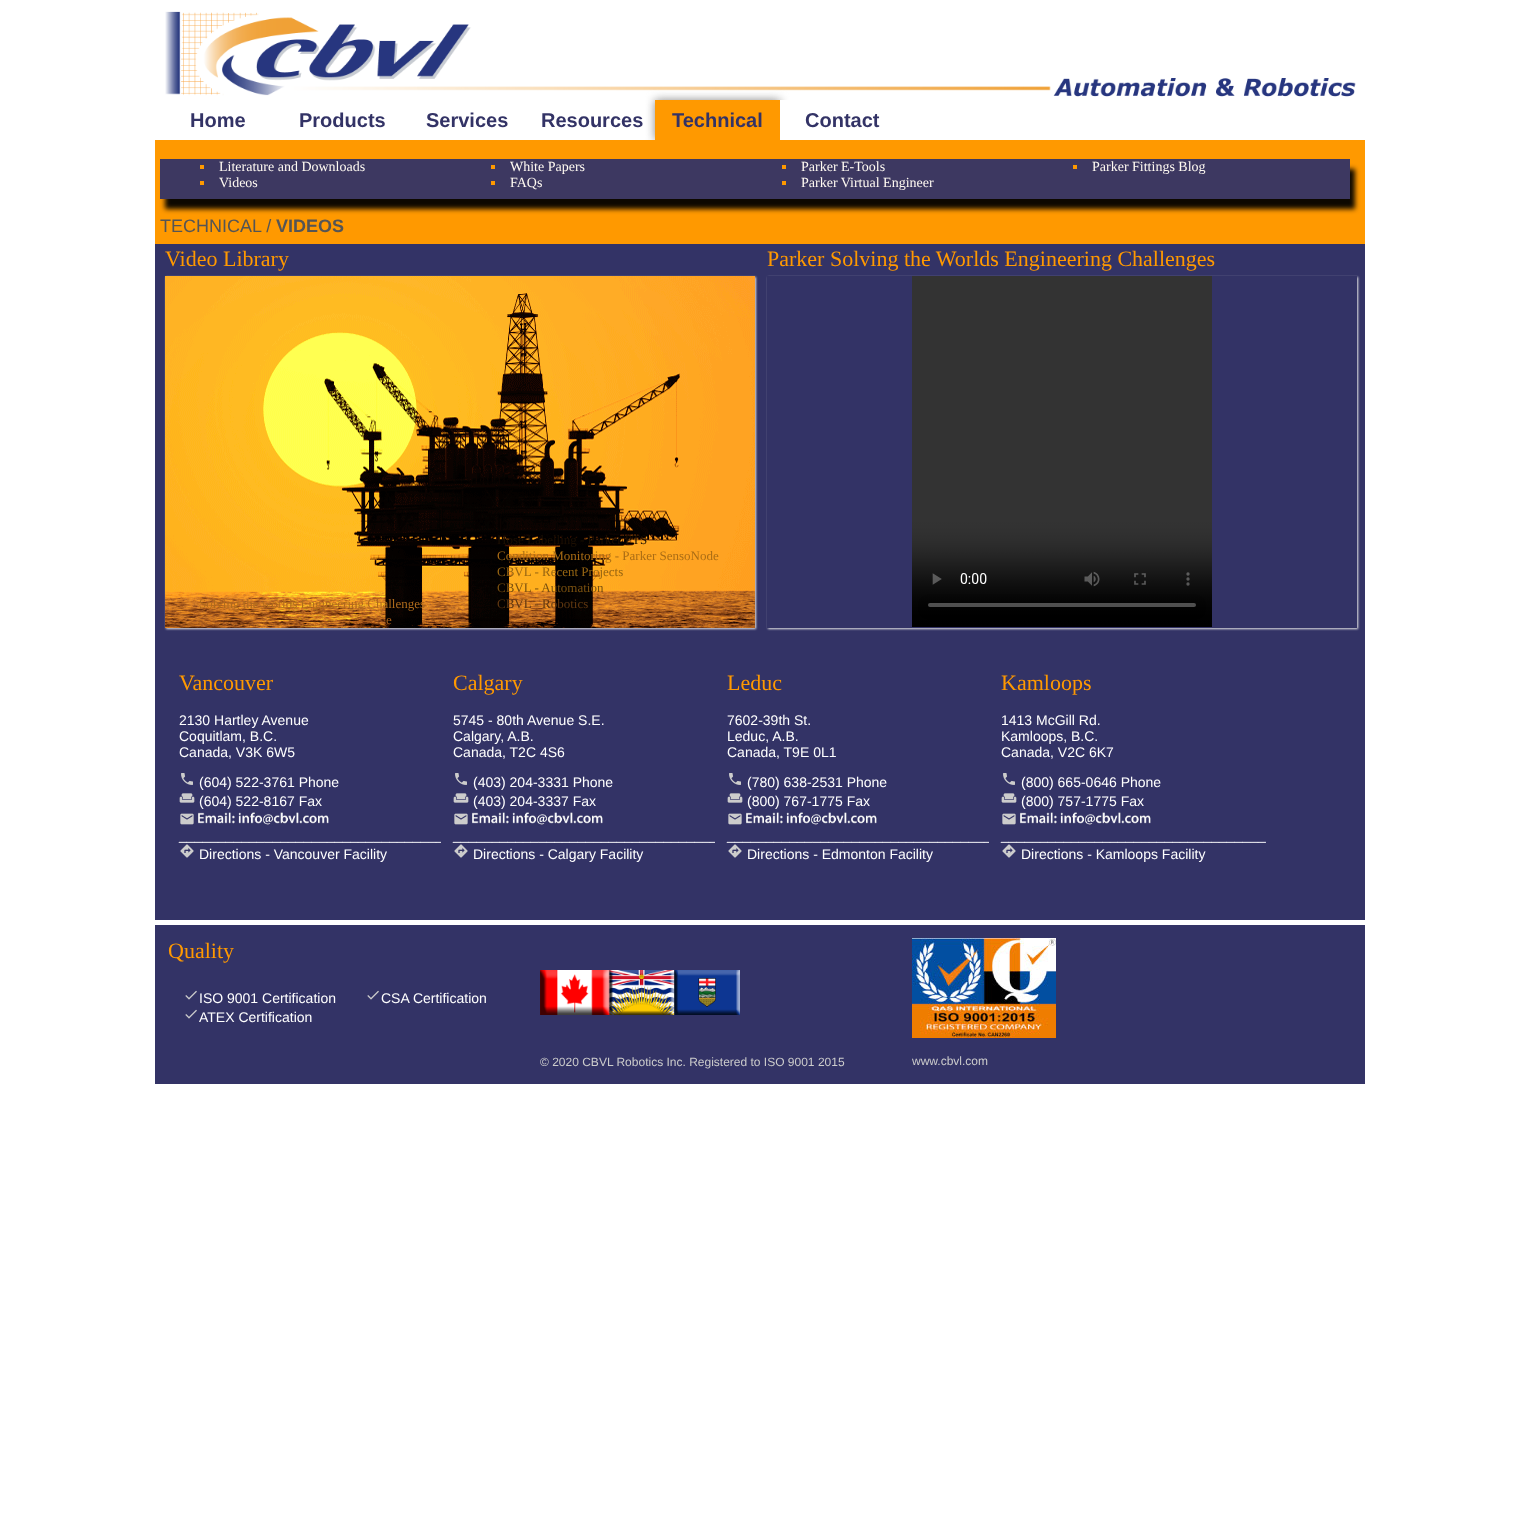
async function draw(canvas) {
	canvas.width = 1520;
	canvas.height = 1513;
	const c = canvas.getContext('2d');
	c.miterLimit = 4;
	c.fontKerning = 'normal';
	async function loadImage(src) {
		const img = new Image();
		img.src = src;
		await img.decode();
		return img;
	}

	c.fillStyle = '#fff';
	c.fillRect(0, 0, 1520, 1513);
	c.drawImage(await loadImage('img1.png'), 165, 11, 1191, 86);
	c.font = 'bold 20px Liberation Sans';
	c.fillStyle = '#336';
	for (const [text, x, y] of [
		['Home', 190, 127],
		['Products', 299, 127],
		['Services', 426, 127],
		['Resources', 541, 127],
	]) {
		c.fillText(text, x, y);
	}
	c.fillStyle = '#888';
	c.filter = 'blur(5px)';
	c.beginPath();
	c.rect(655, 100, 125, 40);
	c.fill();
	c.filter = 'none';
	c.fillStyle = '#f90';
	c.fillRect(655, 100, 125, 40);
	c.fillStyle = '#336';
	c.fillText('Technical', 672, 127);
	c.fillStyle = '#fff';
	c.fillRect(780, 100, 10, 40);
	c.fillStyle = '#336';
	c.fillText('Contact', 805, 127);
	c.fillStyle = '#f90';
	c.fillRect(155, 140, 1210, 104);
	c.fillStyle = '#0d0800';
	c.filter = 'blur(2.5px)';
	c.beginPath();
	c.rect(165, 169, 1190, 40);
	c.fill();
	c.filter = 'none';
	c.fillStyle = '#3d3861';
	c.fillRect(160, 159, 1190, 40);
	c.fillStyle = '#f90';
	c.fillRect(200, 165, 4, 4);
	c.font = '14px Liberation Serif';
	c.fillStyle = '#fffaf2';
	c.fillText('Literature and Downloads', 219, 171);
	c.fillStyle = '#f90';
	c.fillRect(491, 165, 4, 4);
	c.fillStyle = '#fffaf2';
	c.fillText('White Papers', 510, 171);
	c.fillStyle = '#f90';
	c.fillRect(782, 165, 4, 4);
	c.fillStyle = '#fffaf2';
	c.fillText('Parker E-Tools', 801, 171);
	c.fillStyle = '#f90';
	c.fillRect(1073, 165, 4, 4);
	c.fillStyle = '#fffaf2';
	c.fillText('Parker Fittings Blog', 1092, 171);
	c.fillStyle = '#f90';
	c.fillRect(200, 181, 4, 4);
	c.fillStyle = '#fffaf2';
	c.fillText('Videos', 219, 187);
	c.fillStyle = '#f90';
	c.fillRect(491, 181, 4, 4);
	c.fillStyle = '#fffaf2';
	c.fillText('FAQs', 510, 187);
	c.fillStyle = '#f90';
	c.fillRect(782, 181, 4, 4);
	c.fillStyle = '#fffaf2';
	c.fillText('Parker Virtual Engineer', 801, 187);
	c.font = '18px Liberation Sans';
	c.fillStyle = '#555';
	c.fillText('TECHNICAL /', 160, 232);
	c.font = 'bold 18px Liberation Sans';
	c.fillText('VIDEOS', 276, 232);
	c.fillStyle = '#336';
	c.fillRect(155, 244, 1210, 676);
	c.font = '22px Liberation Serif';
	c.fillStyle = '#f90';
	c.fillText('Video Library', 165, 266);
	c.fillStyle = '#e6e6e6';
	c.filter = 'blur(1px)';
	c.beginPath();
	c.rect(166, 277, 590, 352);
	c.fill();
	c.filter = 'none';
	c.drawImage(await loadImage('img2.png'), 165, 276, 590, 352);
	c.font = '13px Liberation Serif';
	c.fillStyle = '#1c0f02';
	c.fillText('Hose Labelling - Parker PTS', 497, 544);
	c.fillStyle = '#ab6d15';
	c.fillText('Condition Monitoring - Parker SensoNode', 497, 560);
	c.fillStyle = '#976512';
	c.fillText('CBVL - Recent Projects', 497, 576);
	c.fillStyle = '#7a500f';
	c.fillText('CBVL - Automation', 497, 592);
	c.fillStyle = '#b06c1c';
	c.fillText('Solving the worlds Engineering Challenges', 199, 608);
	c.fillStyle = '#5f3710';
	c.fillText('CBVL - Robotics', 497, 608);
	c.fillStyle = '#a85f1a';
	c.fillText('e', 386, 624);
	c.font = '22px Liberation Serif';
	c.fillStyle = '#f90';
	c.fillText('Parker Solving the Worlds Engineering Challenges', 767, 266);
	c.save();
	c.beginPath();
	c.moveTo(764, 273);
	c.lineTo(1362, 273);
	c.lineTo(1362, 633);
	c.lineTo(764, 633);
	c.closePath();
	c.moveTo(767, 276);
	c.lineTo(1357, 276);
	c.lineTo(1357, 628);
	c.lineTo(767, 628);
	c.closePath();
	c.clip('evenodd');
	c.fillStyle = '#e6e6e6';
	c.filter = 'blur(1px)';
	c.beginPath();
	c.rect(768, 277, 590, 352);
	c.fill();
	c.filter = 'none';
	c.restore();
	c.drawImage(await loadImage('img3.png'), 912, 276, 300, 351);
	c.fillText('Vancouver', 179, 690);
	c.font = '14px Liberation Sans';
	c.fillStyle = '#fff';
	for (const [text, x, y] of [
		['2130 Hartley Avenue', 179, 725],
		['Coquitlam, B.C.', 179, 741],
		['Canada, V3K 6W5', 179, 757],
	]) {
		c.fillText(text, x, y);
	}
	c.drawImage(await loadImage('img4.png'), 181, 773, 12, 12);
	c.fillText('(604) 522-3761 Phone', 199, 787);
	c.drawImage(await loadImage('img5.png'), 179, 793, 16, 10);
	c.fillText('(604) 522-8167 Fax', 199, 806);
	c.drawImage(await loadImage('img6.png'), 180, 813, 14, 12);
	c.drawImage(await loadImage('img7.png'), 198, 812, 131, 14);
	c.fillText('__________________________________', 179, 840);
	c.drawImage(await loadImage('img8.png'), 180, 844, 14, 14);
	c.fillText('Directions - Vancouver Facility', 199, 859);
	c.fillStyle = '#336';
	c.fillRect(441, 841, 3, 2);
	c.font = '22px Liberation Serif';
	c.fillStyle = '#f90';
	c.fillText('Calgary', 453, 690);
	c.font = '14px Liberation Sans';
	c.fillStyle = '#fff';
	for (const [text, x, y] of [
		['5745 - 80th Avenue S.E.', 453, 725],
		['Calgary, A.B.', 453, 741],
		['Canada, T2C 4S6', 453, 757],
	]) {
		c.fillText(text, x, y);
	}
	c.drawImage(await loadImage('img4.png'), 455, 773, 12, 12);
	c.fillText('(403) 204-3331 Phone', 473, 787);
	c.drawImage(await loadImage('img5.png'), 453, 793, 16, 10);
	c.fillText('(403) 204-3337 Fax', 473, 806);
	c.drawImage(await loadImage('img6.png'), 454, 813, 14, 12);
	c.drawImage(await loadImage('img7.png'), 472, 812, 131, 14);
	c.fillText('__________________________________', 453, 840);
	c.drawImage(await loadImage('img8.png'), 454, 844, 14, 14);
	c.fillText('Directions - Calgary Facility', 473, 859);
	c.fillStyle = '#336';
	c.fillRect(715, 841, 3, 2);
	c.font = '22px Liberation Serif';
	c.fillStyle = '#f90';
	c.fillText('Leduc', 727, 690);
	c.font = '14px Liberation Sans';
	c.fillStyle = '#fff';
	for (const [text, x, y] of [
		['7602-39th St.', 727, 725],
		['Leduc, A.B.', 727, 741],
		['Canada, T9E 0L1', 727, 757],
	]) {
		c.fillText(text, x, y);
	}
	c.drawImage(await loadImage('img4.png'), 729, 773, 12, 12);
	c.fillText('(780) 638-2531 Phone', 747, 787);
	c.drawImage(await loadImage('img5.png'), 727, 793, 16, 10);
	c.fillText('(800) 767-1775 Fax', 747, 806);
	c.drawImage(await loadImage('img6.png'), 728, 813, 14, 12);
	c.drawImage(await loadImage('img9.png'), 746, 812, 131, 14);
	c.fillText('__________________________________', 727, 840);
	c.drawImage(await loadImage('img8.png'), 728, 844, 14, 14);
	c.fillText('Directions - Edmonton Facility', 747, 859);
	c.fillStyle = '#336';
	c.fillRect(989, 841, 3, 2);
	c.font = '22px Liberation Serif';
	c.fillStyle = '#f90';
	c.fillText('Kamloops', 1001, 690);
	c.font = '14px Liberation Sans';
	c.fillStyle = '#fff';
	for (const [text, x, y] of [
		['1413 McGill Rd.', 1001, 725],
		['Kamloops, B.C.', 1001, 741],
		['Canada, V2C 6K7', 1001, 757],
	]) {
		c.fillText(text, x, y);
	}
	c.drawImage(await loadImage('img4.png'), 1003, 773, 12, 12);
	c.fillText('(800) 665-0646 Phone', 1021, 787);
	c.drawImage(await loadImage('img5.png'), 1001, 793, 16, 10);
	c.fillText('(800) 757-1775 Fax', 1021, 806);
	c.drawImage(await loadImage('img6.png'), 1002, 813, 14, 12);
	c.drawImage(await loadImage('img7.png'), 1020, 812, 131, 14);
	c.fillText('__________________________________', 1001, 840);
	c.drawImage(await loadImage('img8.png'), 1002, 844, 14, 14);
	c.fillText('Directions - Kamloops Facility', 1021, 859);
	c.fillStyle = '#336';
	c.fillRect(155, 925, 1210, 159);
	c.font = '22px Liberation Serif';
	c.fillStyle = '#f90';
	c.fillText('Quality', 168, 958);
	c.drawImage(await loadImage('img10.png'), 185, 990, 12, 10);
	c.font = '14px Liberation Sans';
	c.fillStyle = '#fff';
	c.fillText('ISO 9001 Certification', 199, 1003);
	c.drawImage(await loadImage('img10.png'), 367, 990, 12, 10);
	c.fillText('CSA Certification', 381, 1003);
	c.drawImage(await loadImage('img10.png'), 185, 1009, 12, 10);
	c.fillText('ATEX Certification', 199, 1022);
	c.drawImage(await loadImage('img11.png'), 540, 970, 200, 45);
	c.font = '12px Liberation Sans';
	c.fillStyle = '#ccc';
	c.fillText('© 2020 CBVL Robotics Inc. Registered to ISO 9001 2015', 540, 1066);
	c.drawImage(await loadImage('img12.png'), 912, 938, 144, 100);
	c.fillText('www.cbvl.com', 912, 1065);
}

draw(document.querySelector('canvas'));
